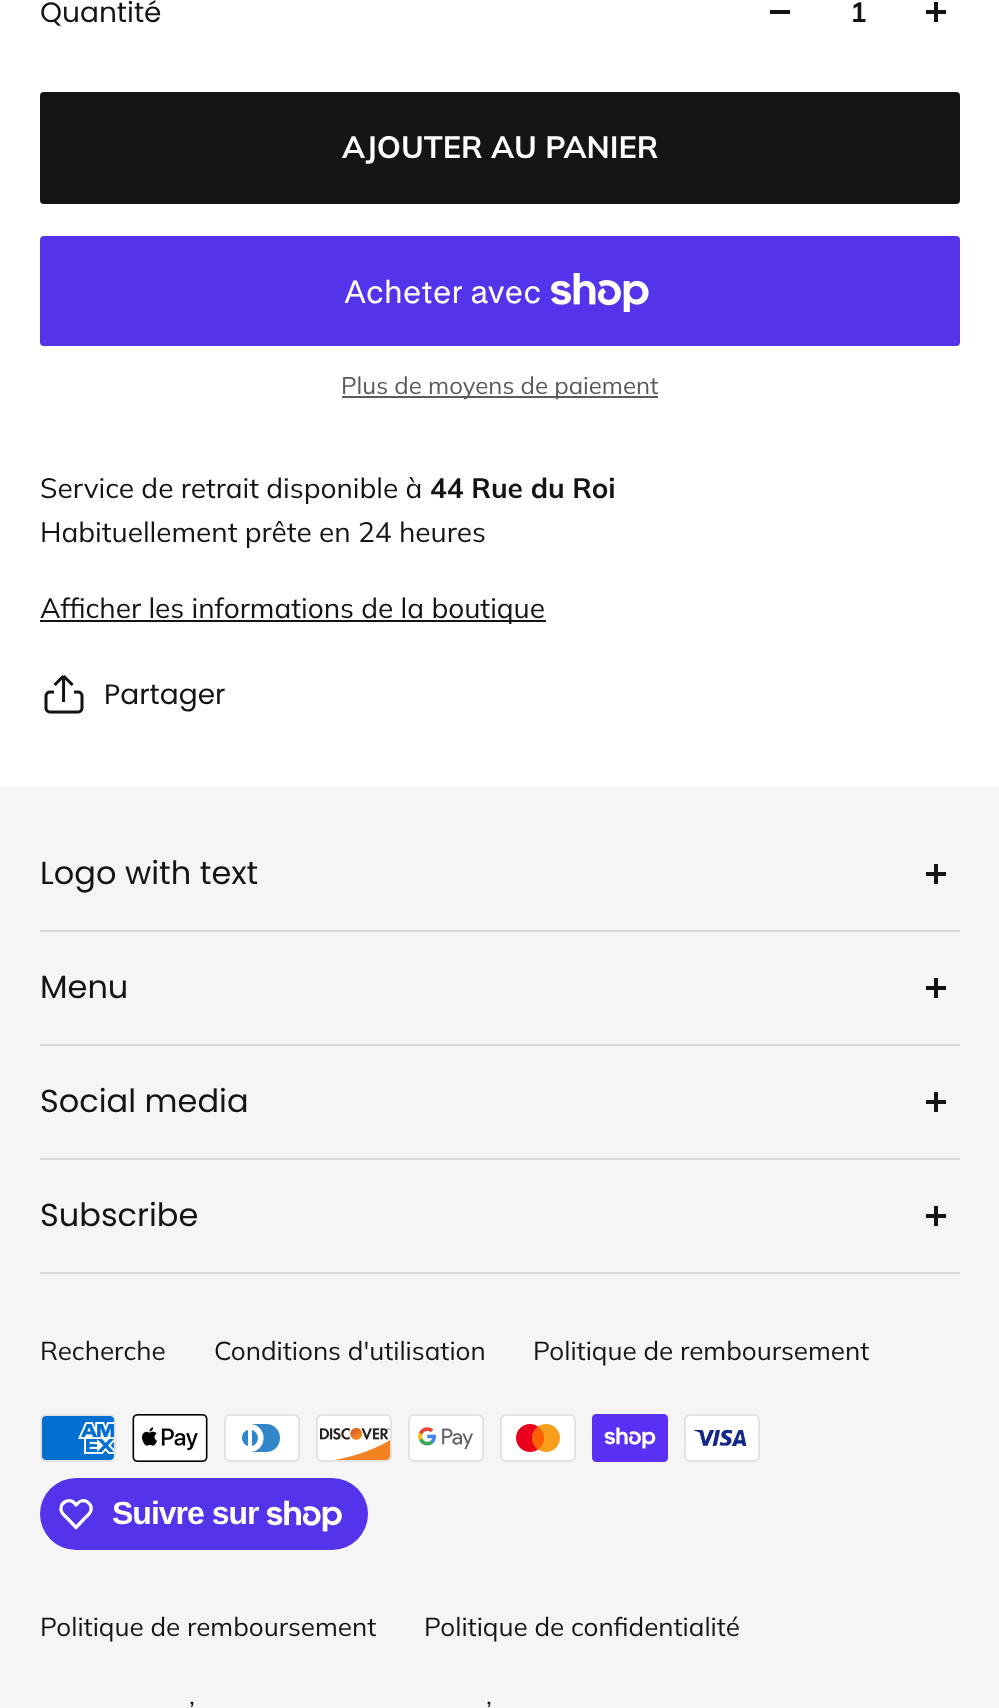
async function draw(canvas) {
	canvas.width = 999;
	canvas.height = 1708;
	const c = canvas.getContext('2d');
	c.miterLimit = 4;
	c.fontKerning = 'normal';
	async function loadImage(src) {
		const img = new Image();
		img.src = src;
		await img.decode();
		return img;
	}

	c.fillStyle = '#fff';
	c.fillRect(0, 0, 999, 1708);
	c.font = '28px Poppins';
	c.fillStyle = '#141416';
	c.fillText('Quantité', 40, 22);
	c.fillRect(770, 10, 20, 4);
	c.font = 'bold 28px Muli';
	c.fillText('1', 850, 22);
	c.fillRect(926, 10, 20, 4);
	c.fillRect(934, 2, 4, 20);
	c.beginPath();
	c.roundRect(40, 92, 920, 112, 4);
	c.fill();
	c.font = 'bold 30.75px Muli';
	c.fillStyle = '#fff';
	c.fillText('AJOUTER AU PANIER', 342, 158);
	c.fillStyle = '#5433eb';
	c.beginPath();
	c.roundRect(40, 236, 920, 110, 4);
	c.fill();
	c.font = '32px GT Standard';
	c.fillStyle = '#fff';
	c.fillText('Acheter avec', 344, 303);
	c.drawImage(await loadImage('img1.png'), 551, 273, 98, 39);
	c.fillStyle = '#5b5b5c';
	c.fillRect(342, 396, 316, 2);
	c.font = '24px Muli';
	c.fillStyle = '#5a5a5c';
	c.fillText('Plus de moyens de paiement', 341, 394);
	c.font = '28px Muli';
	c.fillStyle = '#141416';
	c.fillText('Service de retrait disponible à', 40, 498);
	c.font = 'bold 28px Muli';
	c.fillText('44 Rue du Roi', 430, 498);
	c.font = '28px Muli';
	c.fillText('Habituellement prête en 24 heures', 40, 542);
	c.fillRect(40, 620, 506, 2);
	c.fillText('Afficher les informations de la boutique', 40, 618);
	c.drawImage(await loadImage('img2.png'), 44, 675, 40, 39);
	c.font = '28px Poppins';
	c.fillText('Partager', 104, 704);
	c.fillStyle = '#f5f5f5';
	c.beginPath();
	c.roundRect(0, 786, 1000, 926, 4);
	c.fill();
	c.font = '32px Poppins';
	c.fillStyle = '#141416';
	c.fillText('Logo with text', 40, 884);
	for (const [x, y, w, h, color] of [
		[926, 872, 20, 4, '#141416'],
		[934, 864, 4, 20, '#141416'],
		[40, 930, 920, 2, '#d9d9d9'],
	]) {
		c.fillStyle = color;
		c.fillRect(x, y, w, h);
	}
	c.fillStyle = '#141416';
	c.fillText('Menu', 40, 998);
	for (const [x, y, w, h, color] of [
		[926, 986, 20, 4, '#141416'],
		[934, 978, 4, 20, '#141416'],
		[40, 1044, 920, 2, '#d9d9d9'],
	]) {
		c.fillStyle = color;
		c.fillRect(x, y, w, h);
	}
	c.fillStyle = '#141416';
	c.fillText('Social media', 40, 1112);
	for (const [x, y, w, h, color] of [
		[926, 1100, 20, 4, '#141416'],
		[934, 1092, 4, 20, '#141416'],
		[40, 1158, 920, 2, '#d9d9d9'],
	]) {
		c.fillStyle = color;
		c.fillRect(x, y, w, h);
	}
	c.fillStyle = '#141416';
	c.fillText('Subscribe', 40, 1226);
	for (const [x, y, w, h, color] of [
		[926, 1214, 20, 4, '#141416'],
		[934, 1206, 4, 20, '#141416'],
		[40, 1272, 920, 2, '#d9d9d9'],
	]) {
		c.fillStyle = color;
		c.fillRect(x, y, w, h);
	}
	c.font = '26px Muli';
	c.fillStyle = '#141416';
	for (const [text, x, y] of [
		['Recherche', 40, 1360],
		['Conditions d\'utilisation', 214, 1360],
		['Politique de remboursement', 533, 1360],
	]) {
		c.fillText(text, x, y);
	}
	c.drawImage(await loadImage('img3.png'), 40, 1414, 76, 48);
	c.drawImage(await loadImage('img4.png'), 132, 1414, 76, 48);
	c.drawImage(await loadImage('img5.png'), 224, 1414, 76, 48);
	c.drawImage(await loadImage('img6.png'), 316, 1414, 76, 48);
	c.drawImage(await loadImage('img7.png'), 408, 1414, 76, 48);
	c.drawImage(await loadImage('img8.png'), 500, 1414, 76, 48);
	c.drawImage(await loadImage('img9.png'), 592, 1414, 76, 48);
	c.drawImage(await loadImage('img10.png'), 684, 1414, 76, 48);
	c.fillStyle = '#5433eb';
	c.beginPath();
	c.roundRect(40, 1478, 328, 72, 36);
	c.fill();
	c.beginPath();
	c.moveTo(74.5, 1503);
	c.lineTo(76, 1505);
	c.bezierCurveTo(77.5, 1503.5, 79, 1501.5, 81, 1501);
	c.bezierCurveTo(87, 1499, 93, 1505.5, 90.5, 1511.5);
	c.bezierCurveTo(89.5, 1514.5, 86.5, 1516.5, 84.5, 1518.5);
	c.lineTo(76, 1527.5);
	c.lineTo(67.5, 1518.5);
	c.bezierCurveTo(65.5, 1516.5, 62.5, 1514.5, 61.5, 1511.5);
	c.bezierCurveTo(58.5, 1503.5, 68.5, 1497, 74.5, 1503);
	c.closePath();
	c.strokeStyle = '#fff';
	c.lineWidth = 3.3;
	c.lineJoin = 'round';
	c.stroke();
	c.letterSpacing = '-1px';
	c.font = 'bold 32px Liberation Sans';
	c.fillStyle = '#fff';
	c.fillText('Suivre sur', 112, 1524);
	c.drawImage(await loadImage('img11.png'), 267, 1500, 75, 32);
	c.letterSpacing = '0px';
	c.font = '26px Muli';
	c.fillStyle = '#141416';
	for (const [text, x, y] of [
		['Politique de remboursement', 40, 1636],
		['Politique de confidentialité', 424, 1636],
		['’', 189, 1720],
		['’', 486, 1720],
	]) {
		c.fillText(text, x, y);
	}
}

draw(document.querySelector('canvas'));
